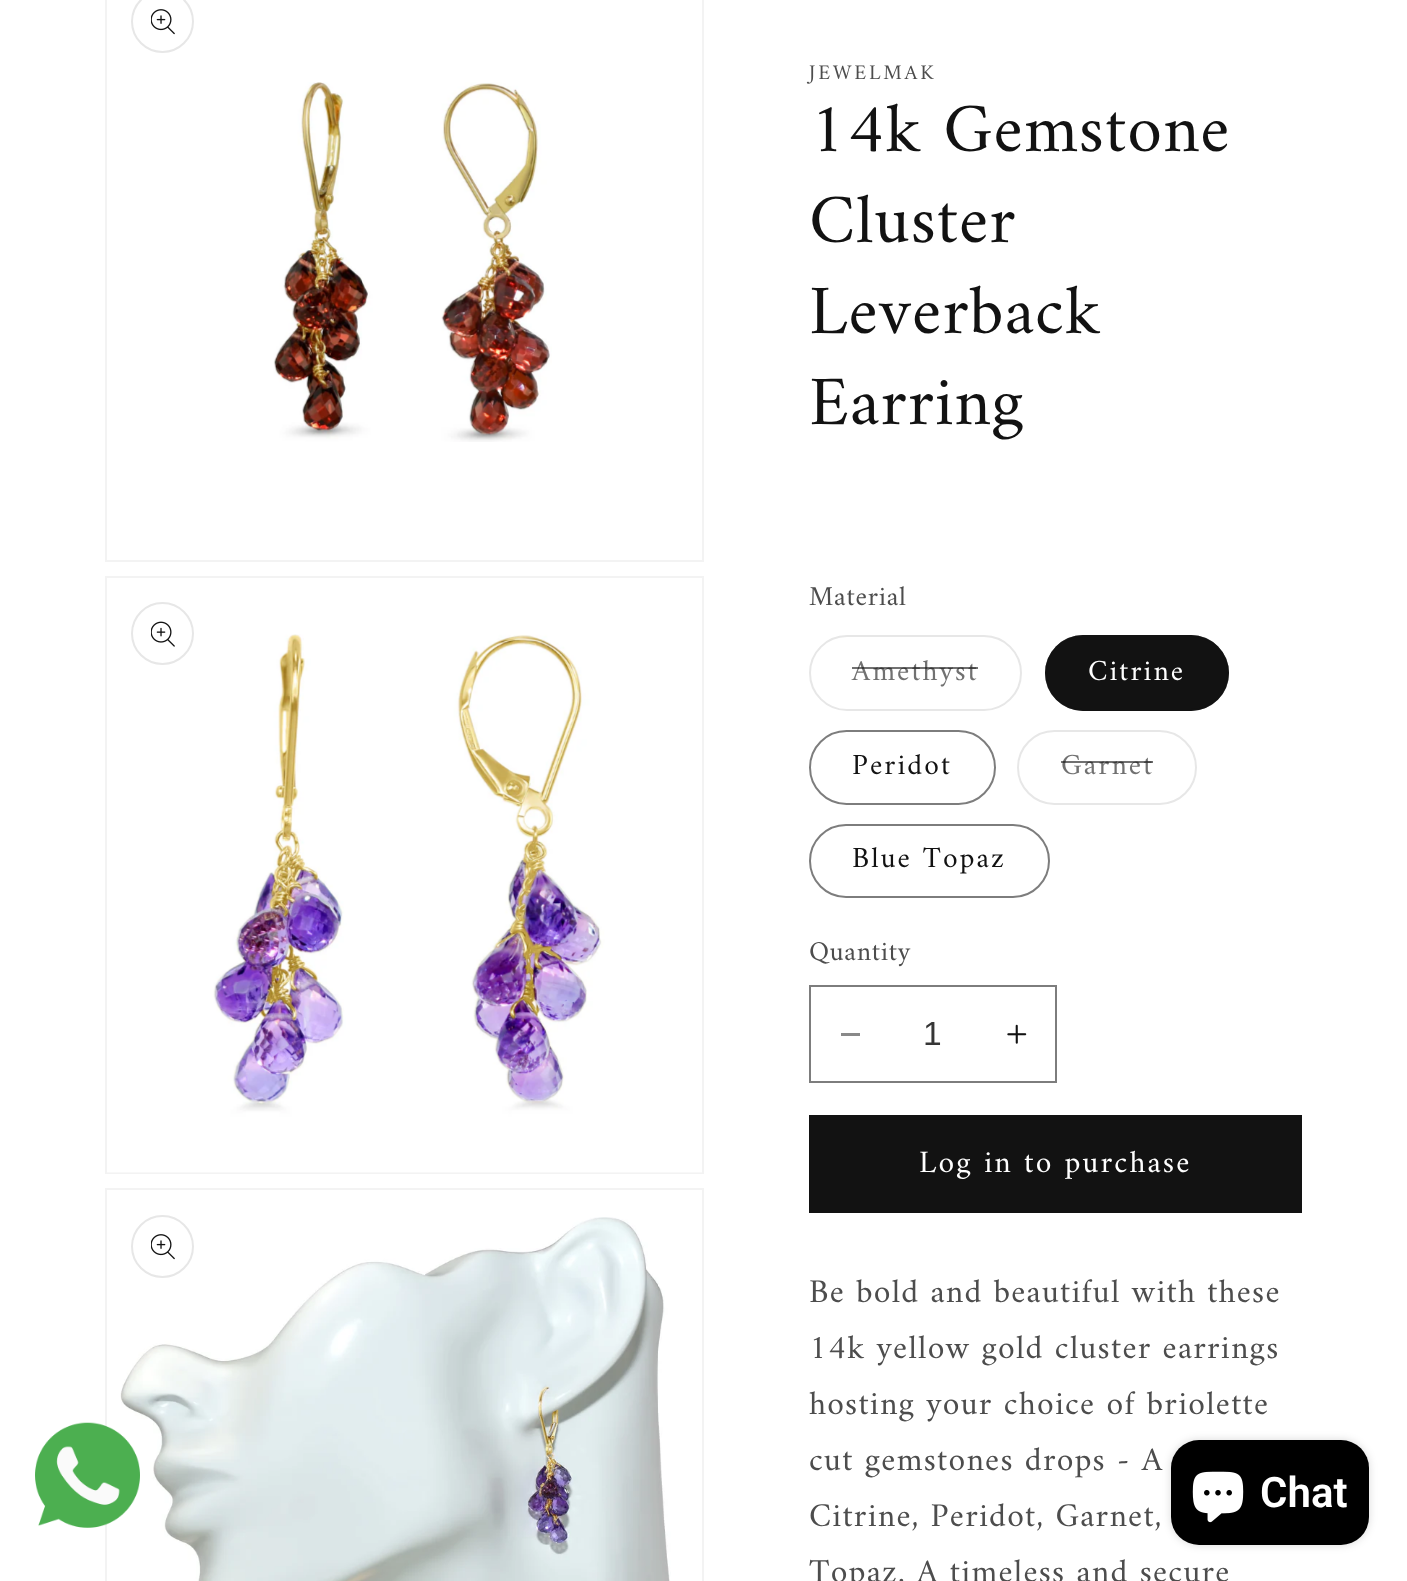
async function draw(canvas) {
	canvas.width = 1407;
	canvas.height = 1581;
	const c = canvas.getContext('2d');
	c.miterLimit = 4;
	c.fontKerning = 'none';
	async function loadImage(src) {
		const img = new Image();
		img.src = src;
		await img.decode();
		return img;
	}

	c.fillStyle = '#fff';
	c.fillRect(0, 0, 1407, 1581);
	c.strokeStyle = '#f3f3f3';
	c.lineWidth = 2;
	c.strokeRect(106, 1189, 597, 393);
	c.drawImage(await loadImage('img6.png'), 120, 1217, 551, 364);
	c.drawImage(await loadImage('img1.png'), 35, 1422, 105, 106);
	c.strokeRect(106, -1, 597, 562);
	c.beginPath();
	c.arc(162.5, 21.5, 30.5, 0, 2 * Math.PI);
	c.strokeStyle = '#e7e7e7';
	c.stroke();
	c.drawImage(await loadImage('img2.png'), 151, 9, 24, 26);
	c.drawImage(await loadImage('img3.png'), 273, 82, 279, 360);
	c.strokeStyle = '#f3f3f3';
	c.strokeRect(106, 577, 597, 596);
	c.drawImage(await loadImage('img5.png'), 107, 634, 595, 539);
	c.beginPath();
	c.arc(162.5, 633.5, 30.5, 0, 2 * Math.PI);
	c.strokeStyle = '#e7e7e7';
	c.stroke();
	c.drawImage(await loadImage('img4.png'), 151, 621, 24, 26);
	c.beginPath();
	c.arc(162.5, 1246.5, 30.5, 0, 2 * Math.PI);
	c.stroke();
	c.drawImage(await loadImage('img2.png'), 151, 1234, 24, 26);
	c.letterSpacing = '2.75px';
	c.font = '21px Amiri';
	c.fillStyle = '#4d4d4d';
	c.fillText('JEWELMAK', 809, 79);
	c.letterSpacing = '1px';
	c.font = '70px Amiri';
	c.fillStyle = '#121212';
	for (const [text, x, y] of [
		['14k Gemstone', 809, 151],
		['Cluster', 809, 242],
		['Leverback', 809, 333],
		['Earring', 809, 424],
	]) {
		c.fillText(text, x, y);
	}
	c.letterSpacing = '0.75px';
	c.font = '27.5px Amiri';
	c.fillStyle = '#4d4d4d';
	c.fillText('Material', 809, 605);
	c.beginPath();
	c.roundRect(810, 636, 211, 74, 37);
	c.stroke();
	c.letterSpacing = '2.1px';
	c.font = '29.5px Amiri';
	c.fillStyle = '#717171';
	c.fillText('Amethyst', 852, 680);
	c.fillStyle = '#12121299';
	c.fillRect(852, 667, 126, 2);
	c.fillStyle = '#121212';
	c.beginPath();
	c.roundRect(1045, 635, 184, 76, 38);
	c.fill();
	c.beginPath();
	c.roundRect(1046, 636, 182, 74, 37);
	c.strokeStyle = '#1212128c';
	c.stroke();
	c.fillStyle = '#fff';
	c.fillText('Citrine', 1088, 680);
	c.beginPath();
	c.roundRect(810, 731, 185, 73, 36.5);
	c.strokeStyle = '#7d7d7d';
	c.stroke();
	c.fillStyle = '#121212';
	c.fillText('Peridot', 852, 774);
	c.beginPath();
	c.roundRect(1018, 731, 178, 73, 36.5);
	c.strokeStyle = '#e7e7e7';
	c.stroke();
	c.fillStyle = '#717171';
	c.fillText('Garnet', 1061, 774);
	c.fillStyle = '#12121299';
	c.fillRect(1061, 761, 92, 2);
	c.beginPath();
	c.roundRect(810, 825, 239, 72, 36);
	c.strokeStyle = '#7d7d7d';
	c.stroke();
	c.fillStyle = '#121212';
	c.fillText('Blue Topaz', 852, 867);
	c.letterSpacing = '0.75px';
	c.font = '27.5px Amiri';
	c.fillStyle = '#4d4d4d';
	c.fillText('Quantity', 809, 960);
	c.fillStyle = '#898989';
	c.fillRect(841, 1033, 19, 3);
	c.drawImage(await loadImage('img7.png'), 1007, 1024, 20, 20);
	c.strokeRect(810, 986, 246, 96);
	c.letterSpacing = '0px';
	c.font = '33.6px Liberation Sans';
	c.fillStyle = '#363636';
	c.fillText('1', 923, 1045);
	c.fillStyle = '#121212';
	c.fillRect(809, 1115, 493, 98);
	c.letterSpacing = '2.1px';
	c.font = '31.5px Amiri';
	c.fillStyle = '#fff';
	c.fillText('Log in to purchase', 919, 1172);
	c.letterSpacing = '1.25px';
	c.font = '33.6px Amiri';
	c.fillStyle = '#4d4d4d';
	for (const [text, x, y] of [
		['Be bold and beautiful with these', 809, 1302],
		['14k yellow gold cluster earrings', 809, 1358],
		['hosting your choice of briolette', 809, 1414],
		['cut gemstones drops - A', 809, 1470],
		['Citrine, Peridot, Garnet,', 809, 1526],
		['Topaz. A timeless and secure', 809, 1582],
	]) {
		c.fillText(text, x, y);
	}
	c.fillStyle = '#00000026';
	c.filter = 'blur(4.5px)';
	c.beginPath();
	c.roundRect(1171, 1440, 198, 105, 28);
	c.fill();
	c.filter = 'none';
	c.fillStyle = '#000';
	c.beginPath();
	c.roundRect(1171, 1440, 198, 105, 28);
	c.fill();
	c.drawImage(await loadImage('img8.png'), 1192, 1471, 52, 52);
	c.letterSpacing = '0px';
	c.font = '600 42px Roboto';
	c.fillStyle = '#fff';
	c.fillText('Chat', 1260, 1507);
}

draw(document.querySelector('canvas'));
